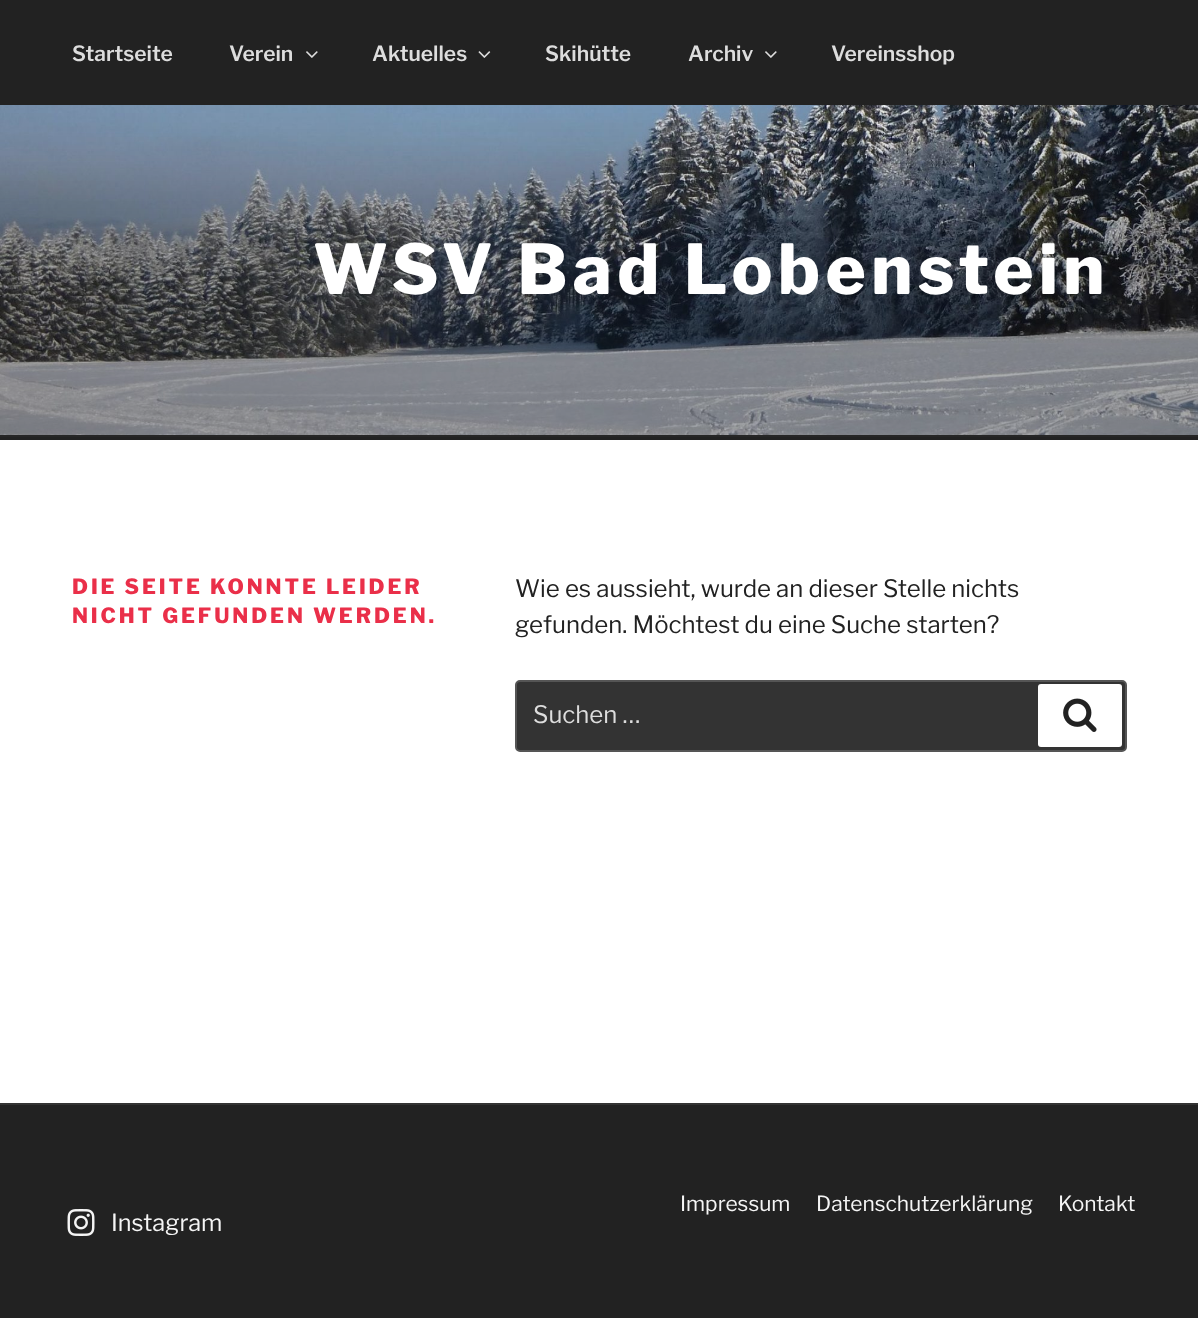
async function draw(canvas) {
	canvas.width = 1198;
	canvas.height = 1318;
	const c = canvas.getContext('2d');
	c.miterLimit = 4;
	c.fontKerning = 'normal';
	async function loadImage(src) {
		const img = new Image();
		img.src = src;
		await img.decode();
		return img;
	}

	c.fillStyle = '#262626';
	c.fillRect(0, 0, 1198, 1318);
	c.fillStyle = '#222';
	c.fillRect(0, 0, 1198, 105);
	c.font = '600 21px Libre Franklin';
	c.fillStyle = '#ddd';
	c.fillText('Startseite', 72, 61);
	c.fillText('Verein', 229, 61);
	c.drawImage(await loadImage('img1.png'), 306, 51, 12, 7);
	c.fillText('Aktuelles', 372, 61);
	c.drawImage(await loadImage('img2.png'), 478, 51, 13, 7);
	c.fillText('Skihütte', 545, 61);
	c.fillText('Archiv', 688, 61);
	c.drawImage(await loadImage('img1.png'), 765, 51, 12, 7);
	c.fillText('Vereinsshop', 831, 61);
	c.drawImage(await loadImage('img3.png'), 0, 105, 1198, 330);
	c.letterSpacing = '5.5px';
	c.font = '800 68.4px Libre Franklin';
	c.fillStyle = '#fff';
	c.fillText('WSV Bad Lobenstein', 313, 294);
	c.fillRect(0, 440, 1198, 663);
	c.fillStyle = '#222';
	c.fillRect(0, 437, 1198, 3);
	c.letterSpacing = '2.9px';
	c.font = '800 21px Libre Franklin';
	c.fillStyle = '#ea2f49';
	c.fillText('DIE SEITE KONNTE LEIDER', 72, 594);
	c.fillText('NICHT GEFUNDEN WERDEN.', 72, 623);
	c.letterSpacing = '0px';
	c.font = '24px Libre Franklin';
	c.fillStyle = '#222';
	c.fillText('Wie es aussieht, wurde an dieser Stelle nichts', 515, 597);
	c.fillText('gefunden. Möchtest du eine Suche starten?', 515, 633);
	c.fillStyle = '#333';
	c.beginPath();
	c.roundRect(516, 681, 610, 70, 4);
	c.fill();
	c.strokeStyle = '#555';
	c.lineWidth = 2;
	c.stroke();
	c.fillStyle = '#ddd';
	c.fillText('Suchen …', 533, 723);
	c.fillStyle = '#fff';
	c.beginPath();
	c.roundRect(1038, 684, 84, 63, 3);
	c.fill();
	c.drawImage(await loadImage('img4.png'), 1063, 698, 34, 34);
	c.fillStyle = '#222';
	c.fillRect(0, 1105, 1198, 213);
	c.fillStyle = '#333';
	c.fillRect(0, 1103, 1198, 2);
	c.font = '21px Libre Franklin';
	c.fillStyle = '#f5f5f5';
	for (const [text, x, y] of [
		['Impressum', 680, 1211],
		['Datenschutzerklärung', 816, 1211],
		['Kontakt', 1058, 1211],
	]) {
		c.fillText(text, x, y);
	}
	c.drawImage(await loadImage('img5.png'), 67, 1209, 28, 27);
	c.font = '23.5px Libre Franklin';
	c.fillText('Instagram', 111, 1231);
}

draw(document.querySelector('canvas'));
